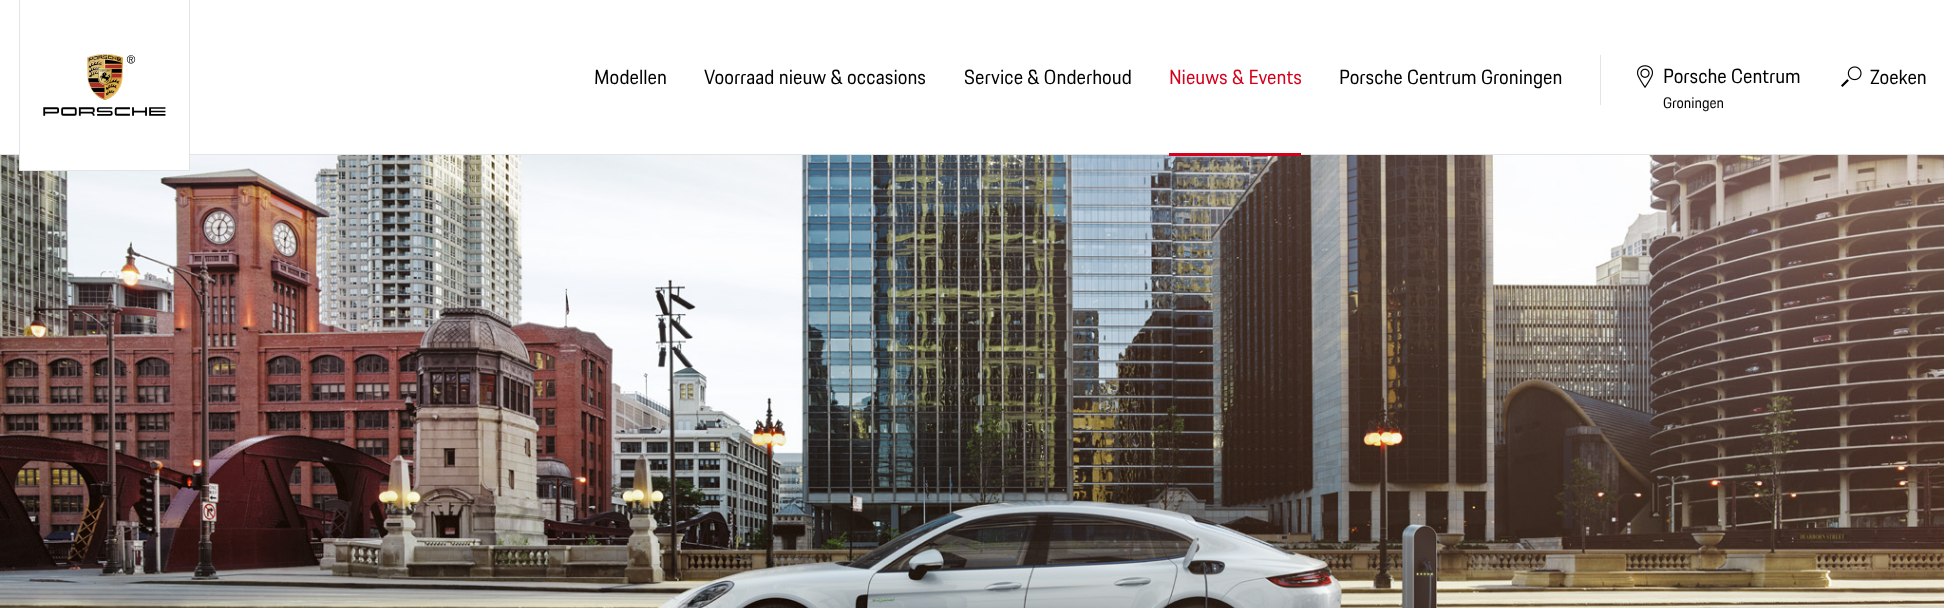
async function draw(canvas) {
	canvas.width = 1944;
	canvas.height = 608;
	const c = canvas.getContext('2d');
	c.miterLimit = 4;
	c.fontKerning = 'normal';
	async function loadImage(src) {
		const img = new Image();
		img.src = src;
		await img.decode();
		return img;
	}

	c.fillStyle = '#fff';
	c.fillRect(0, 0, 1944, 608);
	c.fillStyle = '#e3e4e5';
	c.fillRect(0, 154, 1944, 1);
	c.drawImage(await loadImage('img4.png'), 0, 155, 1944, 453);
	for (const [x, y, w, h, color] of [
		[20, 154, 169, 16, '#fff'],
		[189, 0, 1, 171, '#e3e4e5'],
		[19, 170, 171, 1, '#e3e4e5'],
		[19, 0, 1, 171, '#e3e4e5'],
	]) {
		c.fillStyle = color;
		c.fillRect(x, y, w, h);
	}
	c.drawImage(await loadImage('img1.png'), 43, 54, 123, 62);
	c.font = '20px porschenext';
	c.fillStyle = '#000';
	for (const [text, x, y] of [
		['Modellen', 594, 84],
		['Voorraad nieuw & occasions', 704, 84],
		['Service & Onderhoud', 964, 84],
	]) {
		c.fillText(text, x, y);
	}
	c.fillStyle = '#d5001c';
	c.fillText('Nieuws & Events', 1169, 84);
	c.fillRect(1169, 153, 132, 3);
	c.fillStyle = '#000';
	c.fillText('Porsche Centrum Groningen', 1339, 84);
	c.fillStyle = '#e3e4e5';
	c.fillRect(1600, 55, 1, 50);
	c.drawImage(await loadImage('img2.png'), 1637, 65, 16, 23);
	c.fillStyle = '#000';
	c.fillText('Porsche Centrum', 1663, 83);
	c.font = '15px porschenext';
	c.fillText('Groningen', 1663, 108);
	c.drawImage(await loadImage('img3.png'), 1841, 66, 21, 21);
	c.font = '20px porschenext';
	c.fillText('Zoeken', 1870, 84);
}

draw(document.querySelector('canvas'));
